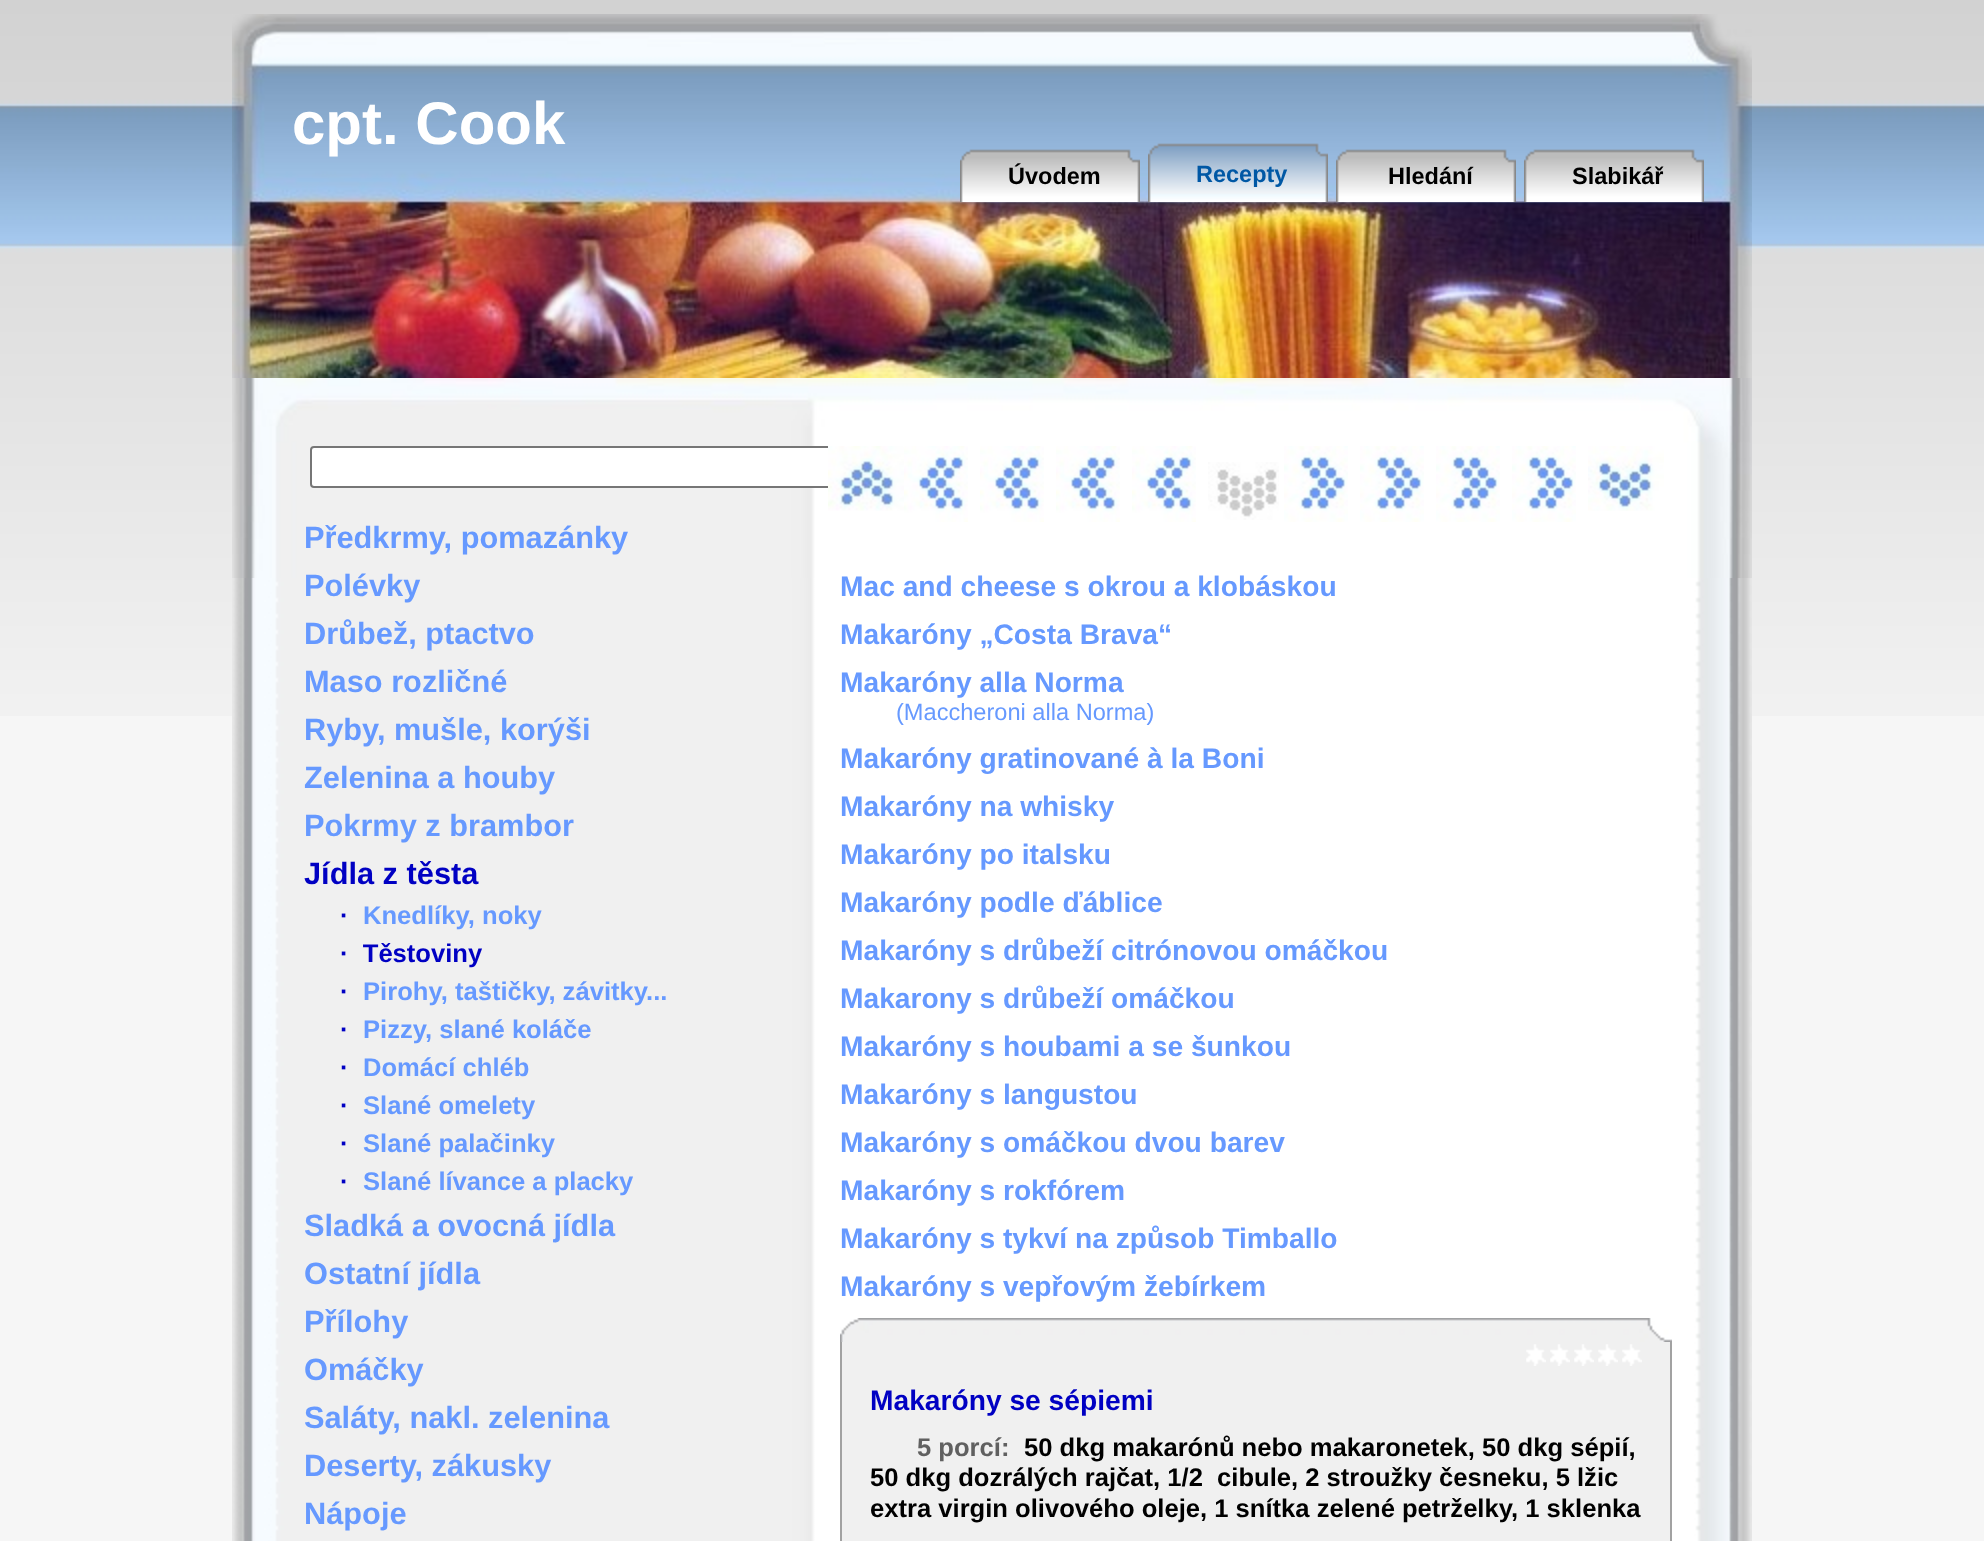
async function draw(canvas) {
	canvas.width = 1984;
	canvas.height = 1541;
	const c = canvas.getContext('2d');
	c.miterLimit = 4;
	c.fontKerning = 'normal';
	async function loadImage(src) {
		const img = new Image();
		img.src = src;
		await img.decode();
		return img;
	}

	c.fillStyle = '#f6f6f6';
	c.fillRect(0, 0, 1984, 1541);
	c.drawImage(await loadImage('img1.png'), 0, 0, 1984, 716);
	c.drawImage(await loadImage('img2.png'), 232, 14, 1520, 364);
	c.font = 'bold 60px Liberation Sans';
	c.fillStyle = '#fff';
	c.fillText('cpt. Cook', 292, 144);
	c.drawImage(await loadImage('img3.png'), 960, 149, 180, 53);
	c.font = 'bold 23.5px Liberation Sans';
	c.fillStyle = '#000';
	c.fillText('Úvodem', 1008, 184);
	c.drawImage(await loadImage('img4.png'), 1148, 143, 180, 59);
	c.fillStyle = '#0058a5';
	c.fillText('Recepty', 1196, 182);
	c.drawImage(await loadImage('img3.png'), 1336, 149, 180, 53);
	c.fillStyle = '#000';
	c.fillText('Hledání', 1388, 184);
	c.drawImage(await loadImage('img5.png'), 1524, 149, 180, 53);
	c.fillText('Slabikář', 1572, 184);
	c.drawImage(await loadImage('img6.png'), 232, 578, 1520, 963);
	c.drawImage(await loadImage('img7.png'), 232, 378, 1520, 200);
	c.fillStyle = '#fff';
	c.beginPath();
	c.roundRect(311, 447, 528, 40, 3);
	c.fill();
	c.strokeStyle = '#767676';
	c.lineWidth = 2;
	c.stroke();
	c.font = 'bold 30.75px Liberation Sans';
	c.fillStyle = '#69f';
	for (const [text, x, y] of [
		['Předkrmy, pomazánky', 304, 548],
		['Polévky', 304, 596],
		['Drůbež, ptactvo', 304, 644],
		['Maso rozličné', 304, 692],
		['Ryby, mušle, korýši', 304, 740],
		['Zelenina a houby', 304, 788],
		['Pokrmy z brambor', 304, 836],
	]) {
		c.fillText(text, x, y);
	}
	c.fillStyle = '#0000c3';
	c.fillText('Jídla z těsta', 304, 884);
	c.font = 'bold 25.6px Liberation Sans';
	c.fillText('·', 340, 924);
	c.fillStyle = '#69f';
	c.fillText('Knedlíky, noky', 363, 924);
	c.fillStyle = '#0000c3';
	c.fillText('·  Těstoviny', 340, 962);
	c.fillText('·', 340, 1000);
	c.fillStyle = '#69f';
	c.fillText('Pirohy, taštičky, závitky...', 363, 1000);
	c.fillStyle = '#0000c3';
	c.fillText('·', 340, 1038);
	c.fillStyle = '#69f';
	c.fillText('Pizzy, slané koláče', 363, 1038);
	c.fillStyle = '#0000c3';
	c.fillText('·', 340, 1076);
	c.fillStyle = '#69f';
	c.fillText('Domácí chléb', 363, 1076);
	c.fillStyle = '#0000c3';
	c.fillText('·', 340, 1114);
	c.fillStyle = '#69f';
	c.fillText('Slané omelety', 363, 1114);
	c.fillStyle = '#0000c3';
	c.fillText('·', 340, 1152);
	c.fillStyle = '#69f';
	c.fillText('Slané palačinky', 363, 1152);
	c.fillStyle = '#0000c3';
	c.fillText('·', 340, 1190);
	c.fillStyle = '#69f';
	c.fillText('Slané lívance a placky', 363, 1190);
	c.font = 'bold 30.75px Liberation Sans';
	for (const [text, x, y] of [
		['Sladká a ovocná jídla', 304, 1236],
		['Ostatní jídla', 304, 1284],
		['Přílohy', 304, 1332],
		['Omáčky', 304, 1380],
		['Saláty, nakl. zelenina', 304, 1428],
		['Deserty, zákusky', 304, 1476],
		['Nápoje', 304, 1524],
	]) {
		c.fillText(text, x, y);
	}
	c.drawImage(await loadImage('img8.png'), 828, 446, 76, 65);
	c.drawImage(await loadImage('img9.png'), 904, 446, 64, 76);
	c.drawImage(await loadImage('img9.png'), 980, 446, 64, 76);
	c.drawImage(await loadImage('img9.png'), 1056, 446, 64, 76);
	c.drawImage(await loadImage('img9.png'), 1132, 446, 64, 76);
	c.drawImage(await loadImage('img10.png'), 1208, 462, 71, 58);
	c.drawImage(await loadImage('img11.png'), 1284, 446, 64, 76);
	c.drawImage(await loadImage('img11.png'), 1360, 446, 64, 76);
	c.drawImage(await loadImage('img11.png'), 1436, 446, 64, 76);
	c.drawImage(await loadImage('img11.png'), 1512, 446, 64, 76);
	c.drawImage(await loadImage('img12.png'), 1588, 446, 76, 65);
	c.font = 'bold 28.2px Liberation Sans';
	for (const [text, x, y] of [
		['Mac and cheese s okrou a klobáskou', 840, 596],
		['Makaróny „Costa Brava“', 840, 644],
		['Makaróny alla Norma', 840, 692],
	]) {
		c.fillText(text, x, y);
	}
	c.font = '23.6px Liberation Sans';
	c.fillText('(Maccheroni alla Norma)', 896, 720);
	c.font = 'bold 28.2px Liberation Sans';
	for (const [text, x, y] of [
		['Makaróny gratinované à la Boni', 840, 768],
		['Makaróny na whisky', 840, 816],
		['Makaróny po italsku', 840, 864],
		['Makaróny podle ďáblice', 840, 912],
		['Makaróny s drůbeží citrónovou omáčkou', 840, 960],
		['Makarony s drůbeží omáčkou', 840, 1008],
		['Makaróny s houbami a se šunkou', 840, 1056],
		['Makaróny s langustou', 840, 1104],
		['Makaróny s omáčkou dvou barev', 840, 1152],
		['Makaróny s rokfórem', 840, 1200],
		['Makaróny s tykví na způsob Timballo', 840, 1248],
		['Makaróny s vepřovým žebírkem', 840, 1296],
	]) {
		c.fillText(text, x, y);
	}
	c.fillStyle = '#f0f0f0';
	c.fillRect(842, 1342, 828, 199);
	c.drawImage(await loadImage('img13.png'), 840, 1318, 832, 24);
	c.fillStyle = '#a2a2a2';
	c.fillRect(1670, 1342, 2, 199);
	c.fillRect(840, 1342, 2, 199);
	c.drawImage(await loadImage('img14.png'), 1526, 1344, 20, 22);
	c.drawImage(await loadImage('img14.png'), 1550, 1344, 20, 22);
	c.drawImage(await loadImage('img14.png'), 1574, 1344, 20, 22);
	c.drawImage(await loadImage('img14.png'), 1598, 1344, 20, 22);
	c.drawImage(await loadImage('img14.png'), 1622, 1344, 20, 22);
	c.fillStyle = '#0000c3';
	c.fillText('Makaróny se sépiemi', 870, 1410);
	c.font = 'bold 25.6px Liberation Sans';
	c.fillStyle = '#606060';
	c.fillText('5 porcí:', 917, 1456);
	c.fillStyle = '#000';
	for (const [text, x, y] of [
		['50 dkg makarónů nebo makaronetek, 50 dkg sépií,', 1024, 1456],
		['50 dkg dozrálých rajčat, 1/2  cibule, 2 stroužky česneku, 5 lžic', 870, 1486],
		['extra virgin olivového oleje, 1 snítka zelené petrželky, 1 sklenka', 870, 1517],
	]) {
		c.fillText(text, x, y);
	}
}

draw(document.querySelector('canvas'));
